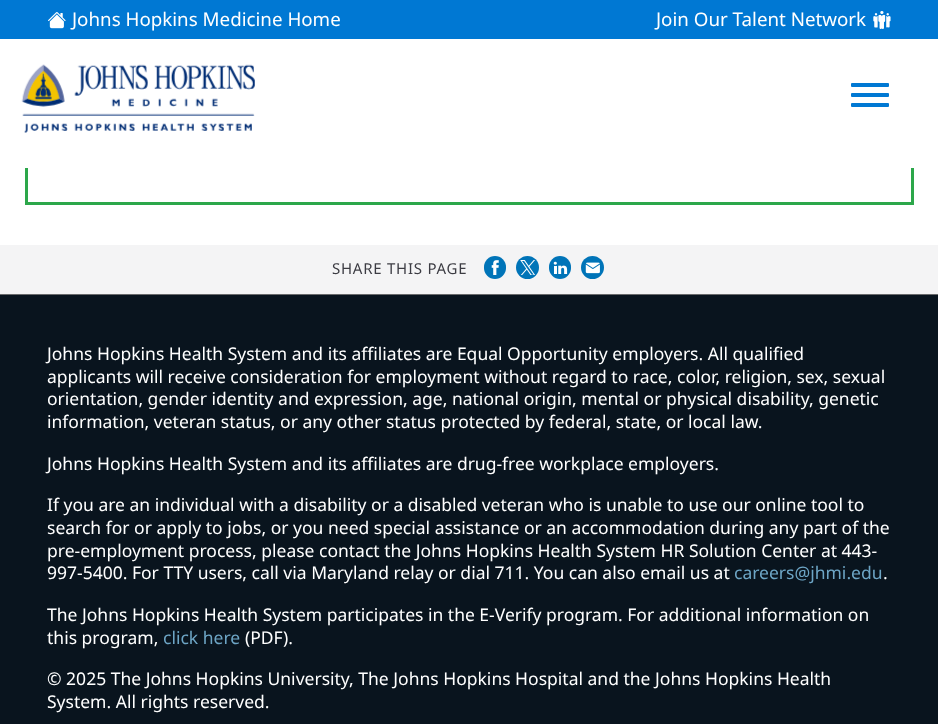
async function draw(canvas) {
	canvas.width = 938;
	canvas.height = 724;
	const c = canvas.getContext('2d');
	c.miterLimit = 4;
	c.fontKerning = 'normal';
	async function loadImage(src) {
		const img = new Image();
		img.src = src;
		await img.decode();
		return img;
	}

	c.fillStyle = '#fff';
	c.fillRect(0, 0, 938, 724);
	c.strokeStyle = '#2ca74a';
	c.lineWidth = 3;
	c.strokeRect(26.5, -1.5, 886, 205);
	c.fillRect(25, 39, 889, 129);
	c.fillStyle = '#0078d3';
	c.fillRect(0, 0, 938, 39);
	c.drawImage(await loadImage('img1.png'), 48, 12, 18, 17);
	c.font = '18.75px Noto Sans';
	c.fillStyle = '#fff';
	c.fillText('Johns Hopkins Medicine Home', 72, 26);
	c.fillText('Join Our Talent Network', 656, 26);
	c.drawImage(await loadImage('img2.png'), 873, 11, 18, 18);
	c.drawImage(await loadImage('img3.png'), 21, 64, 234, 69);
	c.fillStyle = '#0078d3';
	c.beginPath();
	c.roundRect(851, 83, 38, 4, 1);
	c.fill();
	c.beginPath();
	c.roundRect(851, 93, 38, 4, 1);
	c.fill();
	c.beginPath();
	c.roundRect(851, 103, 38, 4, 1);
	c.fill();
	c.fillStyle = '#f4f4f5';
	c.fillRect(0, 245, 938, 49);
	c.fillStyle = '#696a6c';
	c.fillRect(0, 294, 938, 1);
	c.letterSpacing = '0.75px';
	c.font = '15px Noto Sans';
	c.fillStyle = '#3c3c43';
	c.fillText('SHARE THIS PAGE', 332, 274);
	c.fillStyle = '#0074b8';
	c.beginPath();
	c.roundRect(484, 256, 22, 23, 11);
	c.fill();
	c.drawImage(await loadImage('img4.png'), 491, 260, 8, 15);
	c.beginPath();
	c.arc(527.5, 267.5, 11.5, 0, 2 * Math.PI);
	c.fill();
	c.drawImage(await loadImage('img5.png'), 520, 260, 15, 15);
	c.beginPath();
	c.roundRect(549, 256, 22, 23, 11);
	c.fill();
	c.drawImage(await loadImage('img6.png'), 553, 261, 15, 13);
	c.beginPath();
	c.arc(592.5, 267.5, 11.5, 0, 2 * Math.PI);
	c.fill();
	c.drawImage(await loadImage('img7.png'), 585, 262, 15, 12);
	c.fillStyle = '#09141e';
	c.fillRect(0, 295, 938, 429);
	c.letterSpacing = '0px';
	c.font = '17.5px Noto Sans';
	c.fillStyle = '#fff';
	for (const [text, x, y] of [
		['Johns Hopkins Health System and its affiliates are Equal Opportunity employers. All qualified', 47, 360],
		['applicants will receive consideration for employment without regard to race, color, religion, sex, sexual', 47, 383],
		['orientation, gender identity and expression, age, national origin, mental or physical disability, genetic', 47, 405],
		['information, veteran status, or any other status protected by federal, state, or local law.', 47, 428],
		['Johns Hopkins Health System and its affiliates are drug-free workplace employers.', 47, 470],
		['If you are an individual with a disability or a disabled veteran who is unable to use our online tool to', 47, 511],
		['search for or apply to jobs, or you need special assistance or an accommodation during any part of the', 47, 534],
		['pre-employment process, please contact the Johns Hopkins Health System HR Solution Center at 443-', 47, 557],
		['997-5400. For TTY users, call via Maryland relay or dial 711. You can also email us at', 47, 579],
	]) {
		c.fillText(text, x, y);
	}
	c.fillStyle = '#6da5c5';
	c.fillText('careers@jhmi.edu', 734, 579);
	c.fillStyle = '#fff';
	for (const [text, x, y] of [
		['.', 883, 579],
		['The Johns Hopkins Health System participates in the E-Verify program. For additional information on', 47, 621],
		['this program,', 47, 644],
	]) {
		c.fillText(text, x, y);
	}
	c.fillStyle = '#6da5c5';
	c.fillText('click here', 163, 644);
	c.fillStyle = '#fff';
	for (const [text, x, y] of [
		['(PDF).', 245, 644],
		['© 2025 The Johns Hopkins University, The Johns Hopkins Hospital and the Johns Hopkins Health', 47, 685],
		['System. All rights reserved.', 47, 708],
	]) {
		c.fillText(text, x, y);
	}
}

draw(document.querySelector('canvas'));
